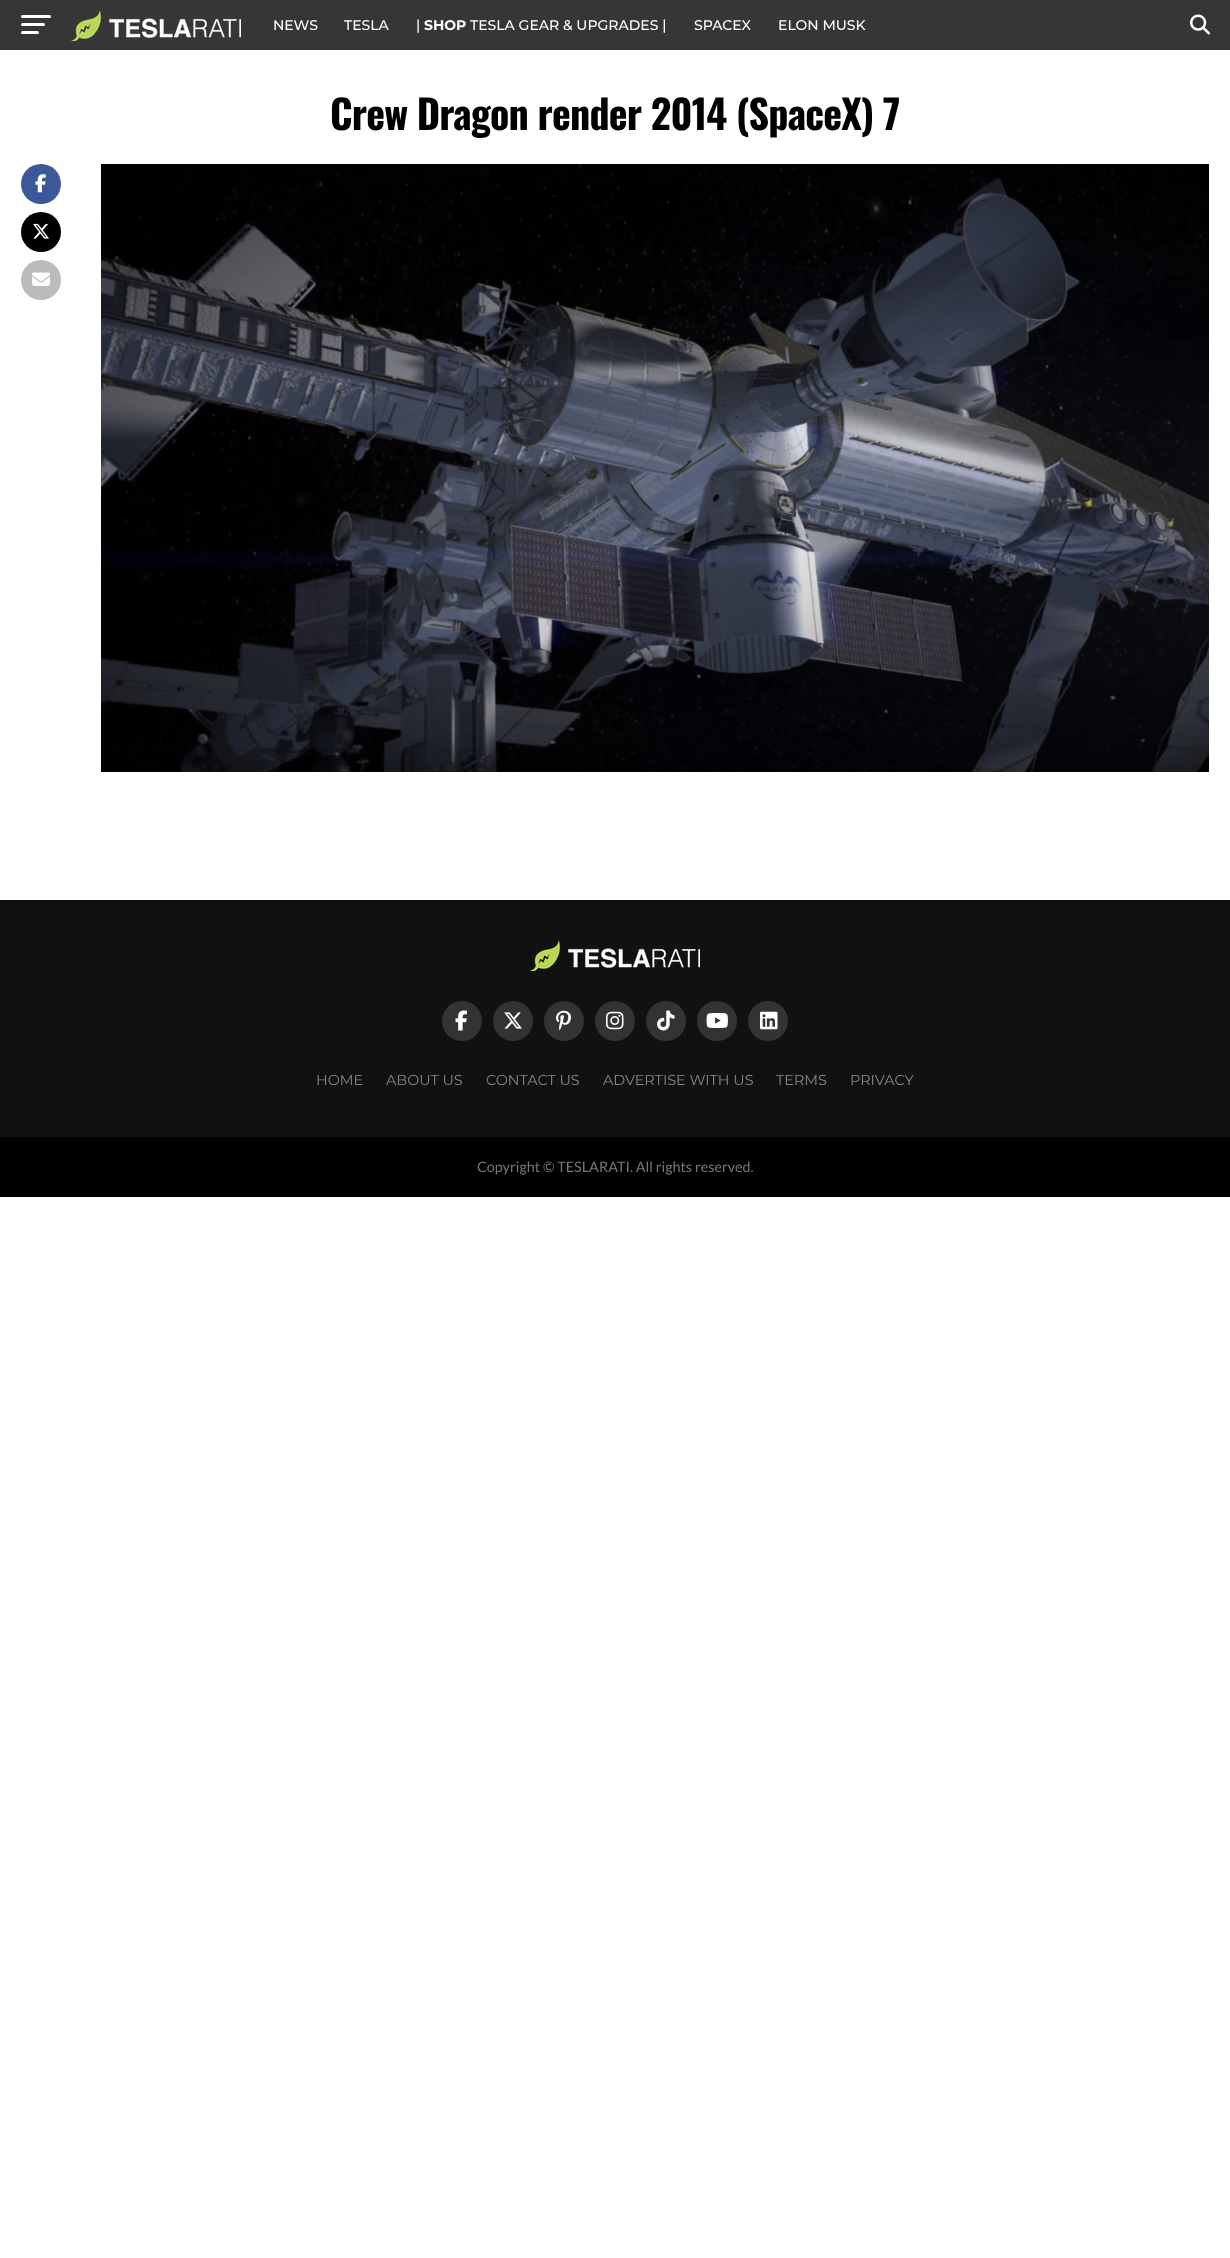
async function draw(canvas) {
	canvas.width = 1230;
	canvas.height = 2258;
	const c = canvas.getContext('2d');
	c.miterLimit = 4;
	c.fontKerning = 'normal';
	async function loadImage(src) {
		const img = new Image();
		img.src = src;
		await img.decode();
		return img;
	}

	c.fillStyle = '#fff';
	c.fillRect(0, 0, 1230, 2258);
	c.fillStyle = '#363636';
	c.fillRect(0, 0, 1230, 50);
	c.fillStyle = '#fff';
	c.beginPath();
	c.roundRect(21, 15, 30, 3, 1.5);
	c.fill();
	c.beginPath();
	c.roundRect(21, 23, 24, 3, 1.5);
	c.fill();
	c.beginPath();
	c.roundRect(21, 31, 18, 3, 1.5);
	c.fill();
	c.drawImage(await loadImage('img1.png'), 71, 10, 170, 31);
	c.font = '500 14px Montserrat';
	for (const [text, x, y] of [
		['NEWS', 273, 30],
		['TESLA', 344, 30],
		['|', 416, 30],
	]) {
		c.fillText(text, x, y);
	}
	c.font = 'bold 14px Montserrat';
	c.fillText('SHOP', 424, 30);
	c.font = '500 14px Montserrat';
	for (const [text, x, y] of [
		['TESLA GEAR & UPGRADES |', 470, 30],
		['SPACEX', 694, 30],
		['ELON MUSK', 778, 30],
	]) {
		c.fillText(text, x, y);
	}
	c.drawImage(await loadImage('img2.png'), 1190, 14, 20, 21);
	c.letterSpacing = '-0.8px';
	c.font = 'bold 40px Oswald';
	c.fillStyle = '#000';
	c.fillText('Crew Dragon render 2014 (SpaceX) 7', 330, 130);
	c.fillStyle = '#3b5998';
	c.beginPath();
	c.arc(41, 184, 20, 0, 2 * Math.PI);
	c.fill();
	c.drawImage(await loadImage('img3.png'), 35, 174, 11, 19);
	c.fillStyle = '#000';
	c.beginPath();
	c.arc(41, 232, 20, 0, 2 * Math.PI);
	c.fill();
	c.drawImage(await loadImage('img4.png'), 33, 223, 16, 16);
	c.fillStyle = '#bbb';
	c.beginPath();
	c.arc(41, 280, 20, 0, 2 * Math.PI);
	c.fill();
	c.drawImage(await loadImage('img5.png'), 32, 272, 18, 14);
	c.drawImage(await loadImage('img6.png'), 101, 164, 1108, 608);
	c.fillStyle = '#111';
	c.fillRect(0, 900, 1230, 237);
	c.drawImage(await loadImage('img7.png'), 530, 940, 170, 31);
	c.fillStyle = '#333';
	c.beginPath();
	c.arc(462, 1021, 20, 0, 2 * Math.PI);
	c.fill();
	c.drawImage(await loadImage('img8.png'), 455, 1010, 12, 21);
	c.beginPath();
	c.arc(513, 1021, 20, 0, 2 * Math.PI);
	c.fill();
	c.drawImage(await loadImage('img9.png'), 504, 1012, 18, 17);
	c.beginPath();
	c.arc(564, 1021, 20, 0, 2 * Math.PI);
	c.fill();
	c.drawImage(await loadImage('img10.png'), 556, 1010, 15, 21);
	c.beginPath();
	c.arc(615, 1021, 20, 0, 2 * Math.PI);
	c.fill();
	c.drawImage(await loadImage('img11.png'), 606, 1011, 18, 19);
	c.beginPath();
	c.arc(666, 1021, 20, 0, 2 * Math.PI);
	c.fill();
	c.drawImage(await loadImage('img12.png'), 657, 1010, 18, 21);
	c.beginPath();
	c.arc(717, 1021, 20, 0, 2 * Math.PI);
	c.fill();
	c.drawImage(await loadImage('img13.png'), 706, 1013, 22, 15);
	c.beginPath();
	c.arc(768, 1021, 20, 0, 2 * Math.PI);
	c.fill();
	c.drawImage(await loadImage('img14.png'), 760, 1011, 18, 19);
	c.letterSpacing = '0px';
	c.font = '14.4px Montserrat';
	c.fillStyle = '#888';
	for (const [text, x, y] of [
		['HOME', 316, 1085],
		['ABOUT US', 386, 1085],
		['CONTACT US', 486, 1085],
		['ADVERTISE WITH US', 603, 1085],
		['TERMS', 776, 1085],
		['PRIVACY', 850, 1085],
	]) {
		c.fillText(text, x, y);
	}
	c.fillStyle = '#000';
	c.fillRect(0, 1137, 1230, 60);
	c.font = '14.4px Lato';
	c.fillStyle = '#777';
	c.fillText('Copyright © TESLARATI. All rights reserved.', 477, 1172);
}

draw(document.querySelector('canvas'));
